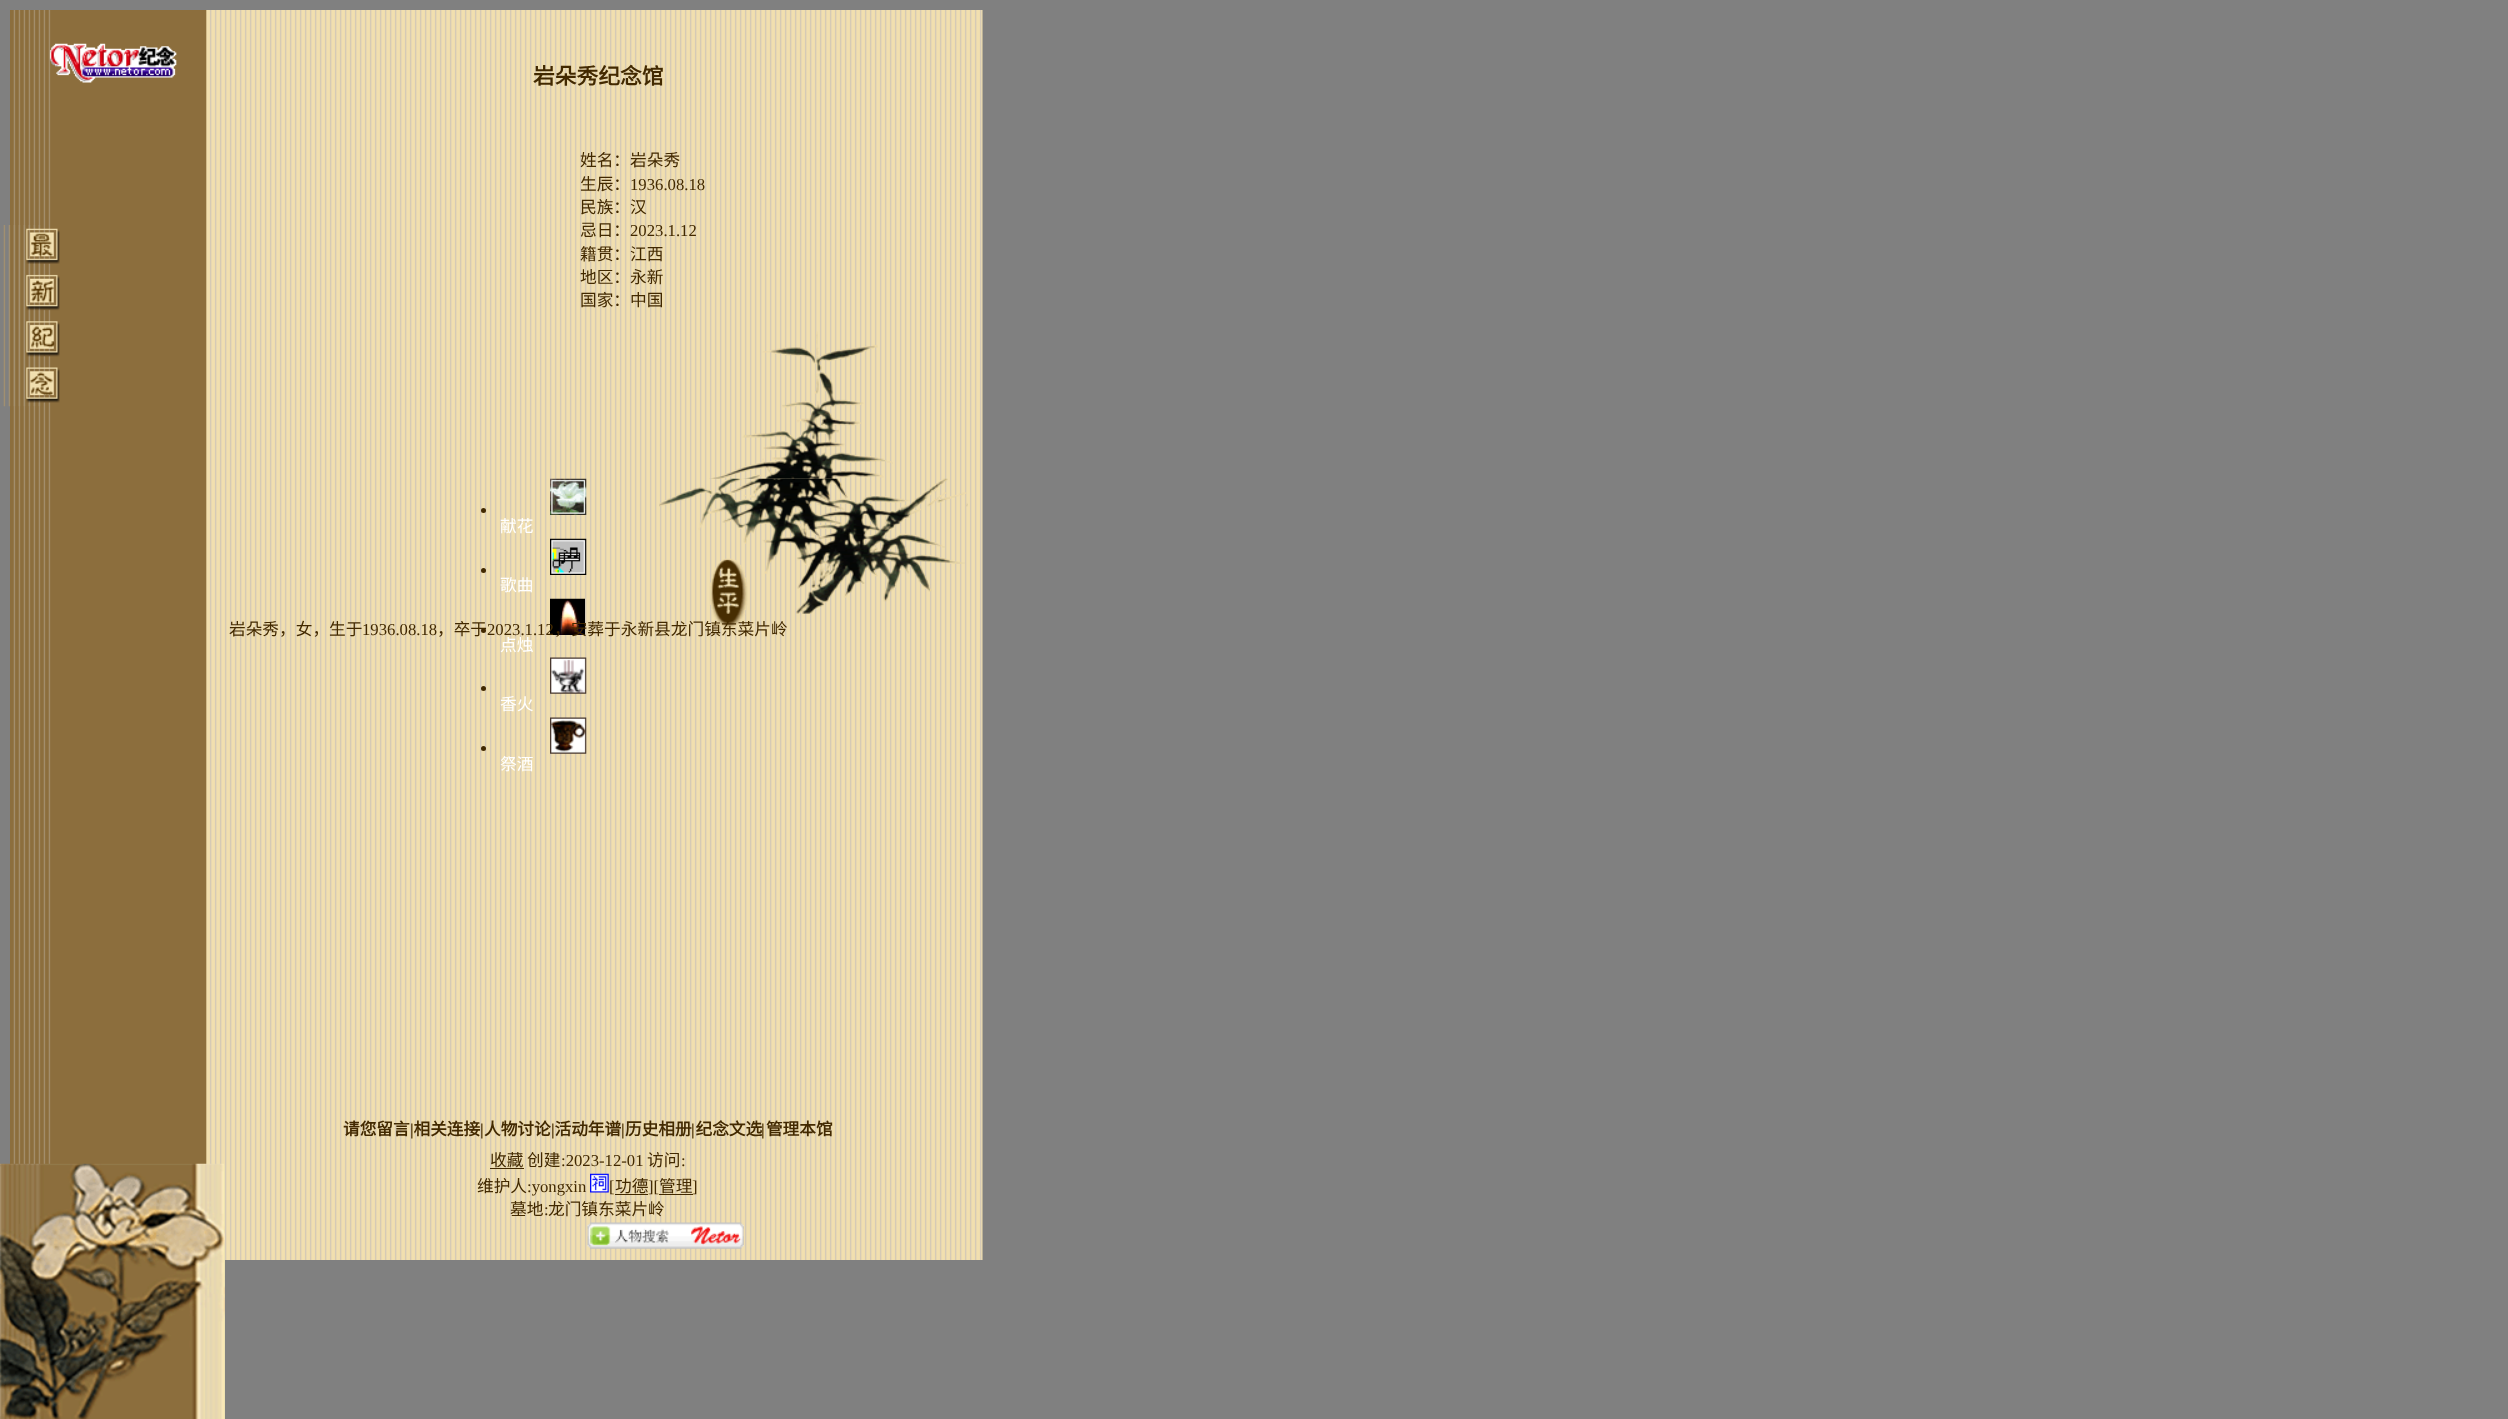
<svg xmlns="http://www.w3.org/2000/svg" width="2508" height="1419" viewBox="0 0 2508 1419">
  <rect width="100%" height="100%" fill="rgb(128,128,128)"/>
  <image x="10" y="10" width="973" height="1250" href="pic1.png"/>
  <image x="49" y="43" width="128" height="40" href="pic2.png"/>
  <text x="533" y="84" font-family="Noto Sans CJK SC" font-size="21.75" font-weight="bold" fill="rgb(66,41,0)">岩朵秀纪念馆</text>
  <image x="3" y="225" width="57" height="182" href="pic3.png"/>
  <g font-family="Noto Sans CJK SC" font-size="16.7" fill="rgb(66,41,0)">
    <text>
      <tspan x="580" y="166">姓名：岩朵秀</tspan>
      <tspan x="580" y="190">生辰：</tspan>
    </text>
  </g>
  <text x="630" y="190" font-family="Liberation Serif" font-size="16.7" fill="rgb(66,41,0)">1936.08.18</text>
  <g font-family="Noto Sans CJK SC" font-size="16.7" fill="rgb(66,41,0)">
    <text>
      <tspan x="580" y="213">民族：汉</tspan>
      <tspan x="580" y="236">忌日：</tspan>
    </text>
  </g>
  <text x="630" y="236" font-family="Liberation Serif" font-size="16.7" fill="rgb(66,41,0)">2023.1.12</text>
  <g font-family="Noto Sans CJK SC" font-size="16.7" fill="rgb(66,41,0)">
    <text>
      <tspan x="580" y="260">籍贯：江西</tspan>
      <tspan x="580" y="283">地区：永新</tspan>
      <tspan x="580" y="306">国家：中国</tspan>
    </text>
  </g>
  <image x="709" y="331" width="184" height="148" href="pic4.png"/>
  <circle cx="483.5" cy="510.5" r="2.5" fill="rgb(66,41,0)"/>
  <image x="550" y="478" width="37" height="37" href="pic5.png"/>
  <text x="500" y="532" font-family="Noto Sans CJK SC" font-size="16.7" fill="rgb(255,255,255)">献花</text>
  <circle cx="483.5" cy="570.5" r="2.5" fill="rgb(66,41,0)"/>
  <image x="550" y="538" width="37" height="37" href="pic6.png"/>
  <text x="500" y="591" font-family="Noto Sans CJK SC" font-size="16.7" fill="rgb(255,255,255)">歌曲</text>
  <circle cx="483.5" cy="630.5" r="2.5" fill="rgb(66,41,0)"/>
  <image x="550" y="598" width="35" height="37" href="pic7.png"/>
  <text x="500" y="651" font-family="Noto Sans CJK SC" font-size="16.7" fill="rgb(255,255,255)">点烛</text>
  <circle cx="483.5" cy="688.5" r="2.5" fill="rgb(66,41,0)"/>
  <image x="550" y="657" width="37" height="37" href="pic8.png"/>
  <text x="500" y="710" font-family="Noto Sans CJK SC" font-size="16.7" fill="rgb(255,255,255)">香火</text>
  <circle cx="483.5" cy="748.5" r="2.5" fill="rgb(66,41,0)"/>
  <image x="550" y="717" width="37" height="37" href="pic9.png"/>
  <text x="500" y="770" font-family="Noto Sans CJK SC" font-size="16.7" fill="rgb(255,255,255)">祭酒</text>
  <image x="659" y="478" width="309" height="151" href="pic10.png"/>
  <text x="229" y="635" font-family="Noto Sans CJK SC" font-size="16.7" fill="rgb(66,41,0)">岩朵秀，女，生于</text>
  <text x="362" y="635" font-family="Liberation Serif" font-size="16.7" fill="rgb(66,41,0)">1936.08.18</text>
  <text x="437" y="635" font-family="Noto Sans CJK SC" font-size="16.7" fill="rgb(66,41,0)">，卒于</text>
  <text x="487" y="635" font-family="Liberation Serif" font-size="16.7" fill="rgb(66,41,0)">2023.1.12</text>
  <text x="554" y="635" font-family="Noto Sans CJK SC" font-size="16.7" fill="rgb(66,41,0)">，安葬于永新县龙门镇东菜片岭</text>
  <text x="343" y="1135" font-family="Noto Sans CJK SC" font-size="16.7" font-weight="bold" fill="rgb(66,41,0)">请您留言 相关连接 人物讨论 活动年谱 历史相册 纪念文选 管理本馆</text>
  <g font-family="Liberation Serif" font-size="16.7" font-weight="bold" fill="rgb(66,41,0)">
    <text x="410" y="1135">|</text>
    <text x="480" y="1135">|</text>
    <text x="551" y="1135">|</text>
    <text x="621" y="1135">|</text>
    <text x="691" y="1135">|</text>
    <text x="761" y="1135">|</text>
  </g>
  <text x="490" y="1166" font-family="Noto Sans CJK SC" font-size="16.7" fill="rgb(66,41,0)">收藏</text>
  <rect x="490" y="1168" width="34" height="1" fill="rgb(66,41,0)"/>
  <text x="527" y="1166" font-family="Noto Sans CJK SC" font-size="16.7" fill="rgb(66,41,0)">创建</text>
  <text x="561" y="1166" font-family="Liberation Serif" font-size="16.7" fill="rgb(66,41,0)">:2023-12-01</text>
  <text x="647" y="1166" font-family="Noto Sans CJK SC" font-size="16.7" fill="rgb(66,41,0)">访问</text>
  <text x="681" y="1166" font-family="Liberation Serif" font-size="16.7" fill="rgb(66,41,0)">:</text>
  <text x="477" y="1192" font-family="Noto Sans CJK SC" font-size="16.7" fill="rgb(66,41,0)">维护人</text>
  <text x="527" y="1192" font-family="Liberation Serif" font-size="16.7" fill="rgb(66,41,0)">:yongxin</text>
  <image x="590" y="1173" width="19" height="20" href="pic11.png"/>
  <text x="609" y="1192" font-family="Liberation Serif" font-size="16.7" fill="rgb(66,41,0)">[</text>
  <text x="615" y="1192" font-family="Noto Sans CJK SC" font-size="16.7" fill="rgb(66,41,0)">功德</text>
  <rect x="615" y="1194" width="33" height="1" fill="rgb(66,41,0)"/>
  <text x="648" y="1192" font-family="Liberation Serif" font-size="16.7" fill="rgb(66,41,0)">][</text>
  <text x="659" y="1192" font-family="Noto Sans CJK SC" font-size="16.7" fill="rgb(66,41,0)">管理</text>
  <rect x="659" y="1194" width="34" height="1" fill="rgb(66,41,0)"/>
  <text x="692" y="1192" font-family="Liberation Serif" font-size="16.7" fill="rgb(66,41,0)">]</text>
  <text x="510" y="1215" font-family="Noto Sans CJK SC" font-size="16.7" fill="rgb(66,41,0)">墓地</text>
  <text x="544" y="1215" font-family="Liberation Serif" font-size="16.7" fill="rgb(66,41,0)">:</text>
  <text x="548" y="1215" font-family="Noto Sans CJK SC" font-size="16.7" fill="rgb(66,41,0)">龙门镇东菜片岭</text>
  <image x="587" y="1222" width="157" height="27" href="pic12.png"/>
  <image x="0" y="1163" width="225" height="256" href="pic13.png"/>
</svg>
